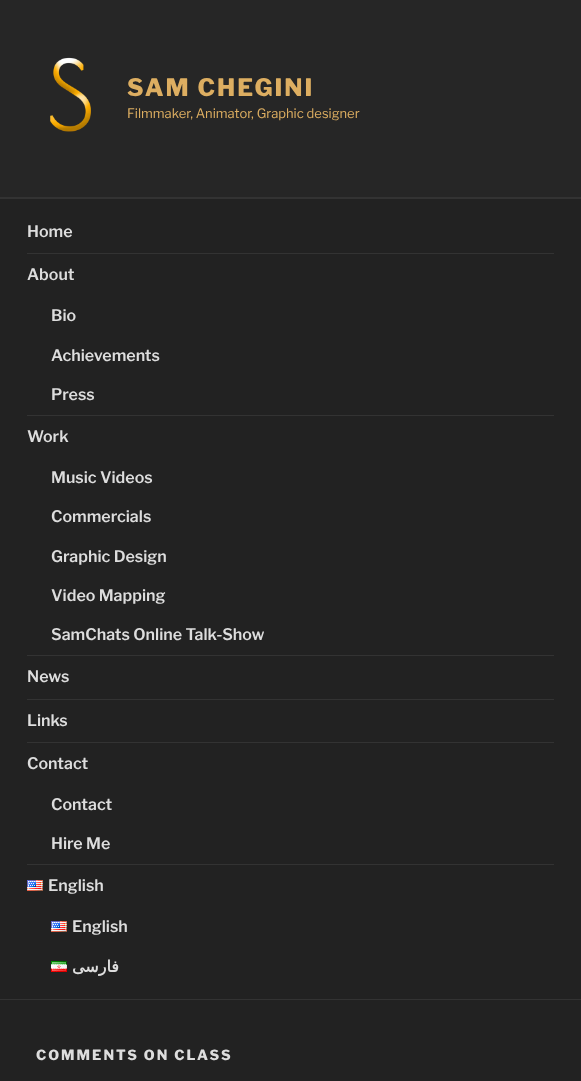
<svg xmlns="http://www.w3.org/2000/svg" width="581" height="1081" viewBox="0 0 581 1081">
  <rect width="100%" height="100%" fill="rgb(34,34,34)"/>
  <rect x="0" y="0" width="581" height="197" fill="rgb(38,38,38)"/>
  <image x="50" y="57" width="41" height="75" href="pic1.png"/>
  <text x="127" y="96" font-family="'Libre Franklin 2'" font-size="24" font-weight="100" letter-spacing="2" fill="rgb(221,174,97)">SAM CHEGINI</text>
  <text x="127" y="118" font-family="'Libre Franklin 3'" font-size="13" font-weight="100" fill="rgb(221,174,97)">Filmmaker, Animator, Graphic designer</text>
  <rect x="0" y="197" width="581" height="2" fill="rgb(51,51,51)"/>
  <rect x="0" y="999" width="581" height="1" fill="rgb(51,51,51)"/>
  <rect x="27" y="253" width="527" height="1" fill="rgb(51,51,51)"/>
  <text x="27" y="237" font-family="Libre Franklin" font-size="16" font-weight="100" fill="rgb(221,221,221)">Home</text>
  <rect x="27" y="415" width="527" height="1" fill="rgb(51,51,51)"/>
  <g font-family="Libre Franklin" font-size="16" font-weight="100" fill="rgb(221,221,221)">
    <text x="27" y="280">About</text>
    <text x="51" y="321">Bio</text>
    <text x="51" y="361">Achievements</text>
    <text x="51" y="400">Press</text>
  </g>
  <rect x="27" y="655" width="527" height="1" fill="rgb(51,51,51)"/>
  <g font-family="Libre Franklin" font-size="16" font-weight="100" fill="rgb(221,221,221)">
    <text x="27" y="442">Work</text>
    <text x="51" y="483">Music Videos</text>
    <text x="51" y="522">Commercials</text>
    <text x="51" y="562">Graphic Design</text>
    <text x="51" y="601">Video Mapping</text>
    <text x="51" y="640">SamChats Online Talk-Show</text>
  </g>
  <rect x="27" y="699" width="527" height="1" fill="rgb(51,51,51)"/>
  <text x="27" y="682" font-family="Libre Franklin" font-size="16" font-weight="100" fill="rgb(221,221,221)">News</text>
  <rect x="27" y="742" width="527" height="1" fill="rgb(51,51,51)"/>
  <text x="27" y="726" font-family="Libre Franklin" font-size="16" font-weight="100" fill="rgb(221,221,221)">Links</text>
  <rect x="27" y="864" width="527" height="1" fill="rgb(51,51,51)"/>
  <g font-family="Libre Franklin" font-size="16" font-weight="100" fill="rgb(221,221,221)">
    <text x="27" y="769">Contact</text>
    <text x="51" y="810">Contact</text>
    <text x="51" y="849">Hire Me</text>
  </g>
  <image x="27" y="880" width="16" height="11" href="pic2.png"/>
  <text x="48" y="891" font-family="Libre Franklin" font-size="16" font-weight="100" fill="rgb(221,221,221)">English</text>
  <image x="51" y="921" width="16" height="11" href="pic2.png"/>
  <text x="72" y="932" font-family="Libre Franklin" font-size="16" font-weight="100" fill="rgb(221,221,221)">English</text>
  <image x="51" y="961" width="16" height="11" href="pic3.png"/>
  <text x="119" y="972" font-family="DejaVu Sans" font-size="16" font-weight="bold" direction="rtl" fill="rgb(221,221,221)">فارسی</text>
  <text x="36" y="1060" font-family="'Libre Franklin 2'" font-size="14" font-weight="100" letter-spacing="2" fill="rgb(221,221,221)">COMMENTS ON CLASS</text>
</svg>
